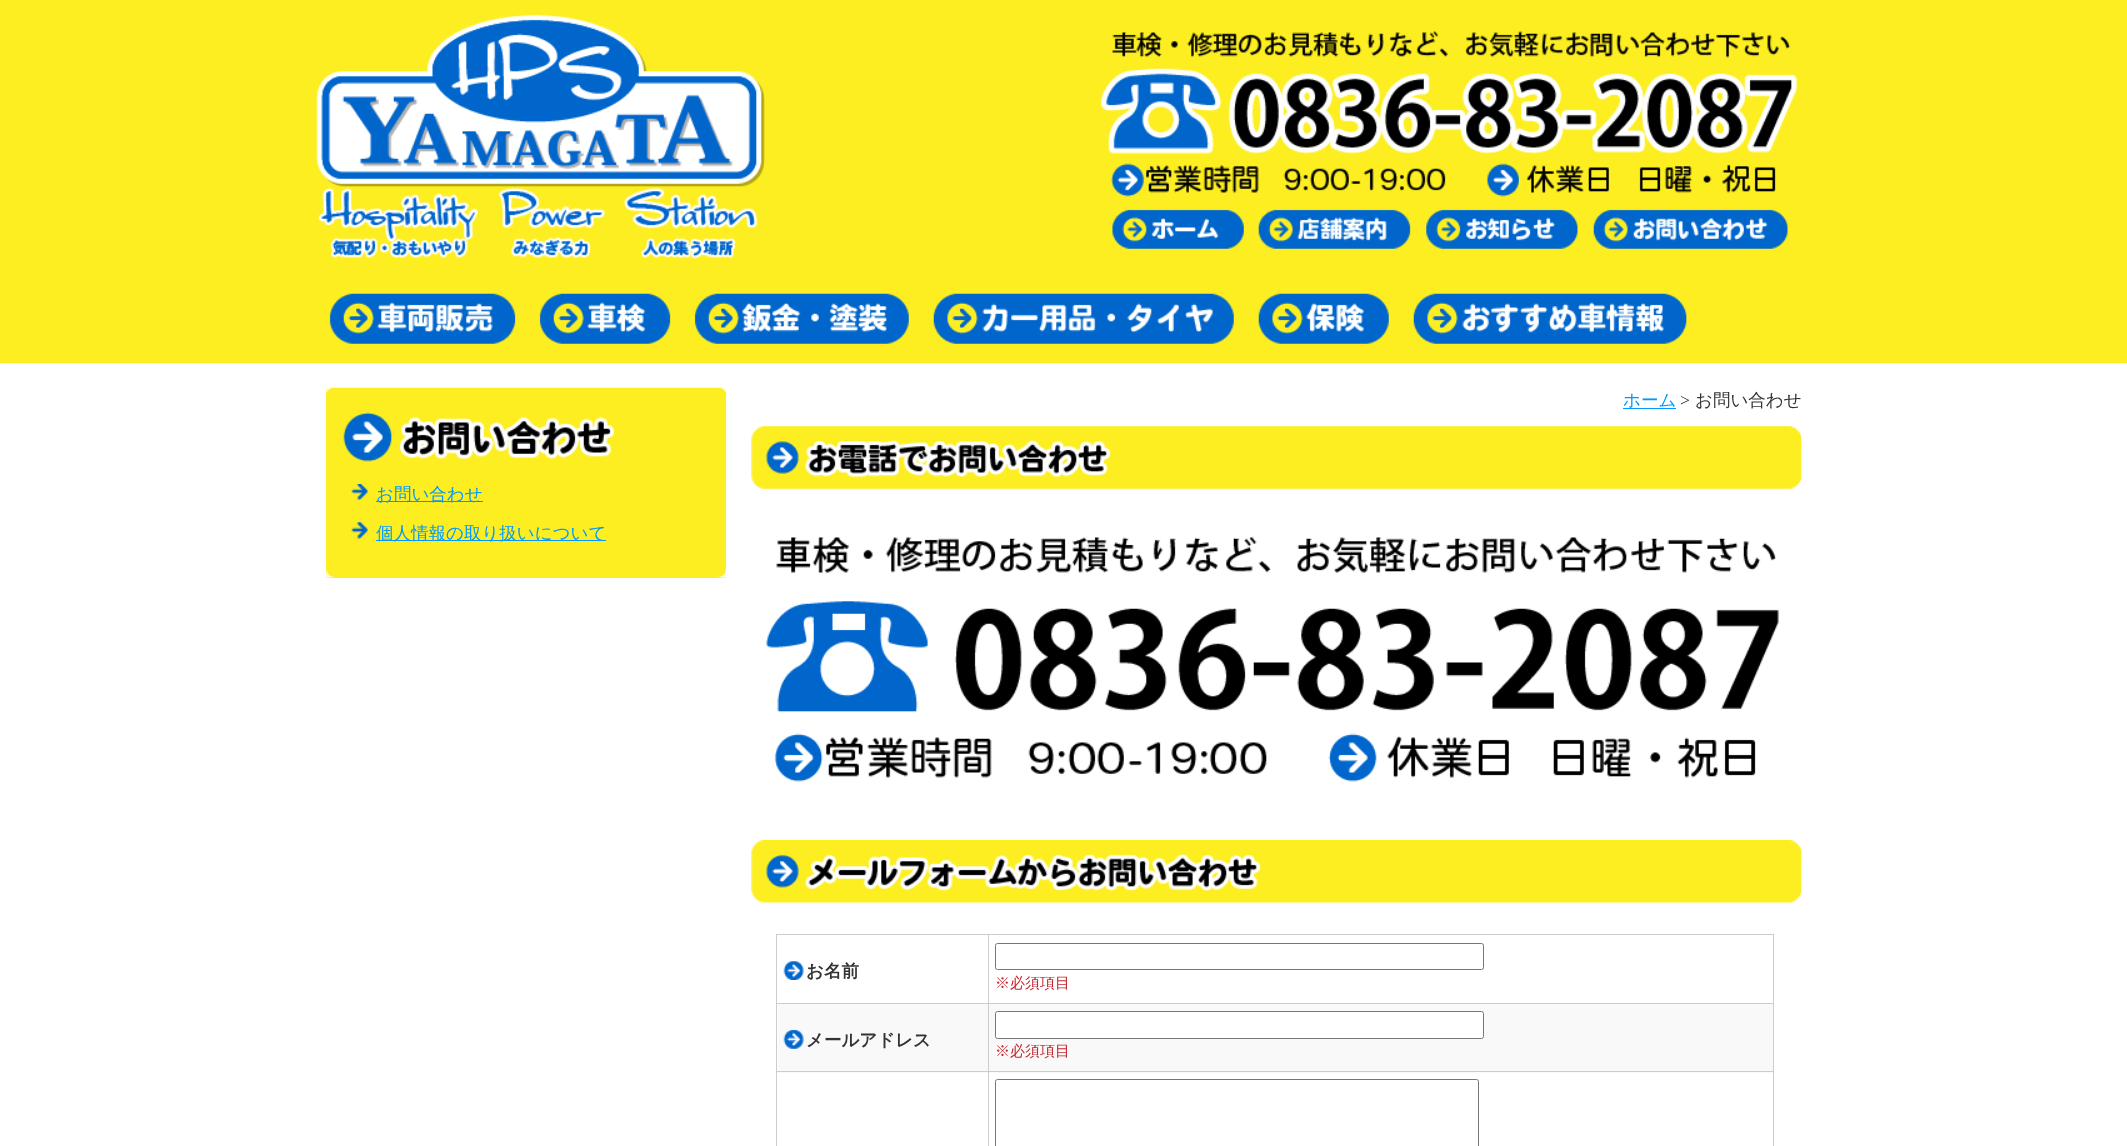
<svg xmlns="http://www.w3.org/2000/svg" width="2127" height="1146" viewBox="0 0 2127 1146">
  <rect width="100%" height="100%" fill="rgb(255,255,255)"/>
  <rect x="0" y="0" width="2127" height="363" fill="rgb(252,238,33)"/>
  <image x="316" y="14" width="449" height="245" href="pic1.png"/>
  <image x="1101" y="31" width="697" height="166" href="pic2.png"/>
  <image x="1112" y="209" width="132" height="40" href="pic3.png"/>
  <image x="1258" y="209" width="153" height="40" href="pic4.png"/>
  <image x="1426" y="209" width="152" height="40" href="pic5.png"/>
  <image x="1593" y="209" width="195" height="40" href="pic6.png"/>
  <image x="329" y="293" width="187" height="51" href="pic7.png"/>
  <image x="539" y="293" width="132" height="51" href="pic8.png"/>
  <image x="694" y="293" width="215" height="51" href="pic9.png"/>
  <image x="933" y="293" width="301" height="51" href="pic10.png"/>
  <image x="1258" y="293" width="131" height="51" href="pic11.png"/>
  <image x="1413" y="293" width="274" height="51" href="pic12.png"/>
  <rect x="326" y="388" width="400" height="190" fill="rgb(252,238,33)"/>
  <image x="326" y="568" width="400" height="10" href="pic13.png"/>
  <image x="326" y="387" width="401" height="88" href="pic14.png"/>
  <image x="351" y="484" width="17" height="16" href="pic15.png"/>
  <rect x="376" y="501" width="107" height="1" fill="rgb(0,153,255)"/>
  <text x="376" y="500" font-family="WenQuanYi Zen Hei" font-size="17.5" font-weight="500" fill="rgb(0,153,255)">お問い合わせ</text>
  <image x="351" y="522" width="17" height="17" href="pic16.png"/>
  <rect x="376" y="540" width="230" height="1" fill="rgb(0,153,255)"/>
  <g font-family="WenQuanYi Zen Hei" font-size="17.5" font-weight="500" fill="rgb(0,153,255)">
    <text x="376" y="539">個人情報の取り扱いについて</text>
    <text x="1623" y="406">ホーム</text>
  </g>
  <rect x="1623" y="408" width="53" height="1" fill="rgb(0,153,255)"/>
  <text x="1680" y="406" font-family="Liberation Serif" font-size="17.5" fill="rgb(51,51,51)">&gt;</text>
  <text x="1695" y="406" font-family="WenQuanYi Zen Hei" font-size="17.5" font-weight="500" fill="rgb(51,51,51)">お問い合わせ</text>
  <image x="751" y="426" width="1051" height="63" href="pic17.png"/>
  <image x="766" y="536" width="1013" height="246" href="pic18.png"/>
  <image x="751" y="840" width="1051" height="63" href="pic19.png"/>
  <rect x="776" y="934" width="998" height="1" fill="rgb(204,204,204)"/>
  <rect x="1773" y="934" width="1" height="212" fill="rgb(204,204,204)"/>
  <rect x="776" y="934" width="1" height="212" fill="rgb(204,204,204)"/>
  <image x="783" y="961" width="21" height="19" href="pic20.png"/>
  <text x="806" y="977" font-family="WenQuanYi Zen Hei" font-size="17.5" font-weight="bold" fill="rgb(51,51,51)">お名前</text>
  <rect x="988" y="1003" width="786" height="1" fill="rgb(204,204,204)"/>
  <rect x="778" y="1004" width="210" height="69" fill="rgb(249,249,249)"/>
  <rect x="989" y="1004" width="784" height="69" fill="rgb(249,249,249)"/>
  <rect x="988" y="1071" width="786" height="1" fill="rgb(204,204,204)"/>
  <rect x="988" y="1071" width="1" height="75" fill="rgb(204,204,204)"/>
  <rect x="776" y="1071" width="213" height="1" fill="rgb(204,204,204)"/>
  <rect x="988" y="1003" width="1" height="70" fill="rgb(204,204,204)"/>
  <rect x="776" y="1003" width="213" height="1" fill="rgb(204,204,204)"/>
  <rect x="988" y="934" width="1" height="70" fill="rgb(204,204,204)"/>
  <rect x="995.5" y="943.5" width="488" height="26" rx="2" fill="none" stroke="rgb(118,118,118)"/>
  <text x="995" y="988" font-family="WenQuanYi Zen Hei" font-size="15" font-weight="500" fill="rgb(193,39,45)">※必須項目</text>
  <image x="783" y="1029" width="21" height="20" href="pic21.png"/>
  <text x="806" y="1046" font-family="WenQuanYi Zen Hei" font-size="17.5" font-weight="bold" fill="rgb(51,51,51)">メールアドレス</text>
  <rect x="995.5" y="1011.5" width="488" height="27" rx="2" fill="rgb(255,255,255)" stroke="rgb(118,118,118)"/>
  <text x="995" y="1056" font-family="WenQuanYi Zen Hei" font-size="15" font-weight="500" fill="rgb(193,39,45)">※必須項目</text>
  <rect x="995.5" y="1079.5" width="483" height="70" rx="2" fill="none" stroke="rgb(118,118,118)"/>
</svg>
